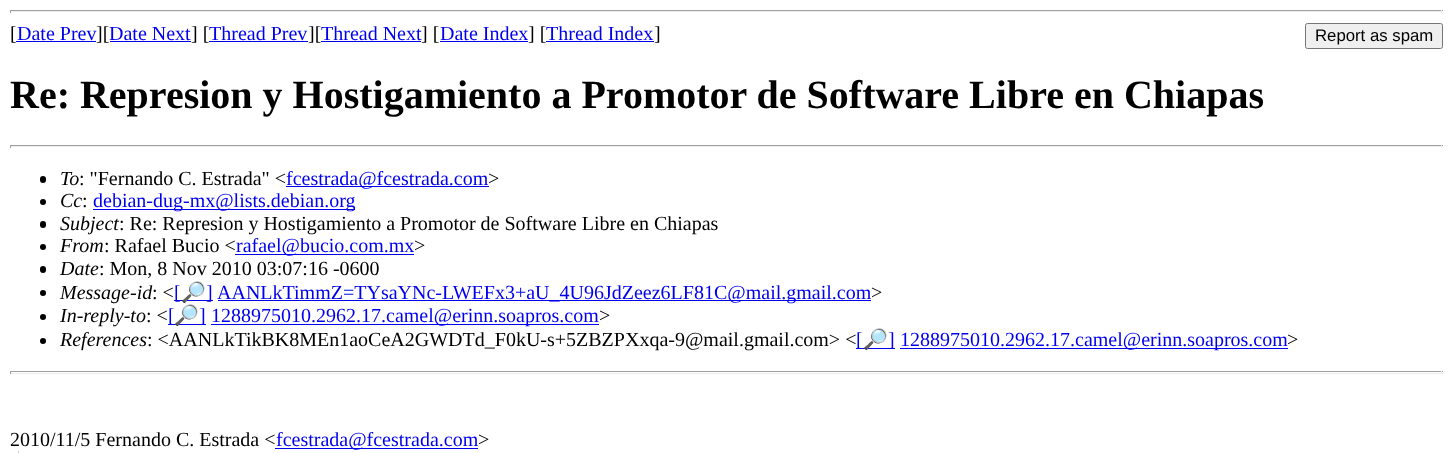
<svg xmlns="http://www.w3.org/2000/svg" width="1452" height="453" viewBox="0 0 1452 453">
  <rect width="100%" height="100%" fill="rgb(255,255,255)"/>
  <rect x="10" y="10" width="1433" height="1" fill="rgb(159,159,159)"/>
  <rect x="1441" y="10" width="1" height="3" fill="rgb(238,238,238)"/>
  <rect x="10" y="11" width="1433" height="1" fill="rgb(238,238,238)"/>
  <rect x="10" y="10" width="1" height="3" fill="rgb(159,159,159)"/>
  <text x="10" y="40" font-family="Liberation Serif" font-size="20" fill="rgb(0,0,0)">[</text>
  <text x="17" y="40" font-family="Liberation Serif" font-size="20" fill="rgb(0,0,238)">Date Prev</text>
  <rect x="16" y="41" width="80" height="1" fill="rgb(0,0,238)"/>
  <text x="96" y="40" font-family="Liberation Serif" font-size="20" fill="rgb(0,0,0)">][</text>
  <text x="109" y="40" font-family="Liberation Serif" font-size="20" fill="rgb(0,0,238)">Date Next</text>
  <rect x="110" y="41" width="81" height="1" fill="rgb(0,0,238)"/>
  <text x="191" y="40" font-family="Liberation Serif" font-size="20" fill="rgb(0,0,0)">] [</text>
  <text x="209" y="40" font-family="Liberation Serif" font-size="20" fill="rgb(0,0,238)">Thread Prev</text>
  <rect x="209" y="41" width="99" height="1" fill="rgb(0,0,238)"/>
  <text x="308" y="40" font-family="Liberation Serif" font-size="20" fill="rgb(0,0,0)">][</text>
  <text x="321" y="40" font-family="Liberation Serif" font-size="20" fill="rgb(0,0,238)">Thread Next</text>
  <rect x="321" y="41" width="100" height="1" fill="rgb(0,0,238)"/>
  <text x="421" y="40" font-family="Liberation Serif" font-size="20" fill="rgb(0,0,0)">] [</text>
  <text x="440" y="40" font-family="Liberation Serif" font-size="20" fill="rgb(0,0,238)">Date Index</text>
  <rect x="440" y="41" width="88" height="1" fill="rgb(0,0,238)"/>
  <text x="528" y="40" font-family="Liberation Serif" font-size="20" fill="rgb(0,0,0)">] [</text>
  <text x="546" y="40" font-family="Liberation Serif" font-size="20" fill="rgb(0,0,238)">Thread Index</text>
  <rect x="546" y="41" width="108" height="1" fill="rgb(0,0,238)"/>
  <text x="654" y="40" font-family="Liberation Serif" font-size="20" fill="rgb(0,0,0)">]</text>
  <rect x="1305.5" y="23.5" width="137" height="25" rx="2" fill="rgb(239,239,239)" stroke="rgb(118,118,118)"/>
  <text x="1315" y="41" font-family="Liberation Sans" font-size="16.75" fill="rgb(0,0,0)">Report as spam</text>
  <text x="10" y="108" font-family="Liberation Serif" font-size="40" font-weight="bold" fill="rgb(0,0,0)">Re: Represion y Hostigamiento a Promotor de Software Libre en Chiapas</text>
  <rect x="10" y="145" width="1433" height="1" fill="rgb(159,159,159)"/>
  <rect x="1441" y="145" width="1" height="3" fill="rgb(238,238,238)"/>
  <rect x="10" y="146" width="1433" height="1" fill="rgb(238,238,238)"/>
  <rect x="10" y="145" width="1" height="3" fill="rgb(159,159,159)"/>
  <rect x="40" y="176" width="6" height="7" rx="3" fill="rgb(0,0,0)"/>
  <text x="60" y="185" font-family="Liberation Serif" font-size="20" font-style="italic" fill="rgb(0,0,0)">To</text>
  <text x="79" y="185" font-family="Liberation Serif" font-size="20" fill="rgb(0,0,0)">: "Fernando C. Estrada" &lt;</text>
  <rect x="286" y="186" width="203" height="1" fill="rgb(0,0,238)"/>
  <text x="286" y="185" font-family="Liberation Serif" font-size="20" fill="rgb(0,0,238)">fcestrada@fcestrada.com</text>
  <text x="488" y="185" font-family="Liberation Serif" font-size="20" fill="rgb(0,0,0)">&gt;</text>
  <circle cx="43" cy="202" r="3" fill="rgb(0,0,0)"/>
  <text x="60" y="207" font-family="Liberation Serif" font-size="20" font-style="italic" fill="rgb(0,0,0)">Cc</text>
  <text x="82" y="207" font-family="Liberation Serif" font-size="20" fill="rgb(0,0,0)">:</text>
  <rect x="93" y="209" width="262" height="1" fill="rgb(0,0,238)"/>
  <text x="93" y="207" font-family="Liberation Serif" font-size="20" fill="rgb(0,0,238)">debian-dug-mx@lists.debian.org</text>
  <rect x="40" y="221" width="6" height="7" rx="3" fill="rgb(0,0,0)"/>
  <text x="60" y="230" font-family="Liberation Serif" font-size="20" font-style="italic" fill="rgb(0,0,0)">Subject</text>
  <text x="119" y="230" font-family="Liberation Serif" font-size="20" fill="rgb(0,0,0)">: Re: Represion y Hostigamiento a Promotor de Software Libre en Chiapas</text>
  <circle cx="43" cy="247" r="3" fill="rgb(0,0,0)"/>
  <text x="60" y="252" font-family="Liberation Serif" font-size="20" font-style="italic" fill="rgb(0,0,0)">From</text>
  <text x="104" y="252" font-family="Liberation Serif" font-size="20" fill="rgb(0,0,0)">: Rafael Bucio &lt;</text>
  <rect x="235" y="254" width="179" height="1" fill="rgb(0,0,238)"/>
  <text x="236" y="252" font-family="Liberation Serif" font-size="20" fill="rgb(0,0,238)">rafael@bucio.com.mx</text>
  <text x="414" y="252" font-family="Liberation Serif" font-size="20" fill="rgb(0,0,0)">&gt;</text>
  <rect x="40" y="266" width="6" height="7" rx="3" fill="rgb(0,0,0)"/>
  <text x="60" y="275" font-family="Liberation Serif" font-size="20" font-style="italic" fill="rgb(0,0,0)">Date</text>
  <text x="99" y="275" font-family="Liberation Serif" font-size="20" fill="rgb(0,0,0)">: Mon, 8 Nov 2010 03:07:16 -0600</text>
  <circle cx="43" cy="293" r="3" fill="rgb(0,0,0)"/>
  <text x="60" y="299" font-family="Liberation Serif" font-size="20" font-style="italic" fill="rgb(0,0,0)">Message-id</text>
  <text x="152" y="299" font-family="Liberation Serif" font-size="20" fill="rgb(0,0,0)">: &lt;</text>
  <rect x="174" y="300" width="39" height="1" fill="rgb(0,0,238)"/>
  <text x="174" y="299" font-family="Liberation Serif" font-size="20" fill="rgb(0,0,238)">[</text>
  <text x="181" y="299" font-family="Noto Color Emoji" font-size="20" fill="rgb(0,0,238)">🔎</text>
  <text x="206" y="299" font-family="Liberation Serif" font-size="20" fill="rgb(0,0,238)">]</text>
  <rect x="218" y="300" width="653" height="1" fill="rgb(0,0,238)"/>
  <text x="217" y="299" font-family="Liberation Serif" font-size="20" fill="rgb(0,0,238)">AANLkTimmZ=TYsaYNc-LWEFx3+aU_4U96JdZeez6LF81C@mail.gmail.com</text>
  <text x="871" y="299" font-family="Liberation Serif" font-size="20" fill="rgb(0,0,0)">&gt;</text>
  <circle cx="43" cy="317" r="3" fill="rgb(0,0,0)"/>
  <text x="60" y="322" font-family="Liberation Serif" font-size="20" font-style="italic" fill="rgb(0,0,0)">In-reply-to</text>
  <text x="146" y="322" font-family="Liberation Serif" font-size="20" fill="rgb(0,0,0)">: &lt;</text>
  <rect x="168" y="324" width="38" height="1" fill="rgb(0,0,238)"/>
  <text x="168" y="322" font-family="Liberation Serif" font-size="20" fill="rgb(0,0,238)">[</text>
  <text x="174" y="322" font-family="Noto Color Emoji" font-size="20" fill="rgb(0,0,238)">🔎</text>
  <text x="199" y="322" font-family="Liberation Serif" font-size="20" fill="rgb(0,0,238)">]</text>
  <rect x="211" y="324" width="388" height="1" fill="rgb(0,0,238)"/>
  <text x="211" y="322" font-family="Liberation Serif" font-size="20" fill="rgb(0,0,238)">1288975010.2962.17.camel@erinn.soapros.com</text>
  <text x="599" y="322" font-family="Liberation Serif" font-size="20" fill="rgb(0,0,0)">&gt;</text>
  <circle cx="43" cy="341" r="3" fill="rgb(0,0,0)"/>
  <text x="60" y="346" font-family="Liberation Serif" font-size="20" font-style="italic" fill="rgb(0,0,0)">References</text>
  <text x="147" y="346" font-family="Liberation Serif" font-size="20" fill="rgb(0,0,0)">: &lt;AANLkTikBK8MEn1aoCeA2GWDTd_F0kU-s+5ZBZPXxqa-9@mail.gmail.com&gt; &lt;</text>
  <rect x="856" y="348" width="39" height="1" fill="rgb(0,0,238)"/>
  <text x="856" y="346" font-family="Liberation Serif" font-size="20" fill="rgb(0,0,238)">[</text>
  <text x="863" y="346" font-family="Noto Color Emoji" font-size="20" fill="rgb(0,0,238)">🔎</text>
  <text x="888" y="346" font-family="Liberation Serif" font-size="20" fill="rgb(0,0,238)">]</text>
  <rect x="900" y="348" width="388" height="1" fill="rgb(0,0,238)"/>
  <text x="900" y="346" font-family="Liberation Serif" font-size="20" fill="rgb(0,0,238)">1288975010.2962.17.camel@erinn.soapros.com</text>
  <text x="1287" y="346" font-family="Liberation Serif" font-size="20" fill="rgb(0,0,0)">&gt;</text>
  <rect x="10" y="371" width="1433" height="1" fill="rgb(159,159,159)"/>
  <rect x="1441" y="371" width="1" height="3" fill="rgb(238,238,238)"/>
  <rect x="10" y="373" width="1433" height="1" fill="rgb(238,238,238)"/>
  <rect x="10" y="371" width="1" height="3" fill="rgb(159,159,159)"/>
  <text x="10" y="446" font-family="Liberation Serif" font-size="20" fill="rgb(0,0,0)">2010/11/5 Fernando C. Estrada &lt;</text>
  <rect x="275" y="448" width="203" height="1" fill="rgb(0,0,238)"/>
  <text x="276" y="446" font-family="Liberation Serif" font-size="20" fill="rgb(0,0,238)">fcestrada@fcestrada.com</text>
  <text x="478" y="446" font-family="Liberation Serif" font-size="20" fill="rgb(0,0,0)">&gt;</text>
  <rect x="18" y="451" width="1" height="2" fill="rgb(204,204,204)"/>
</svg>
